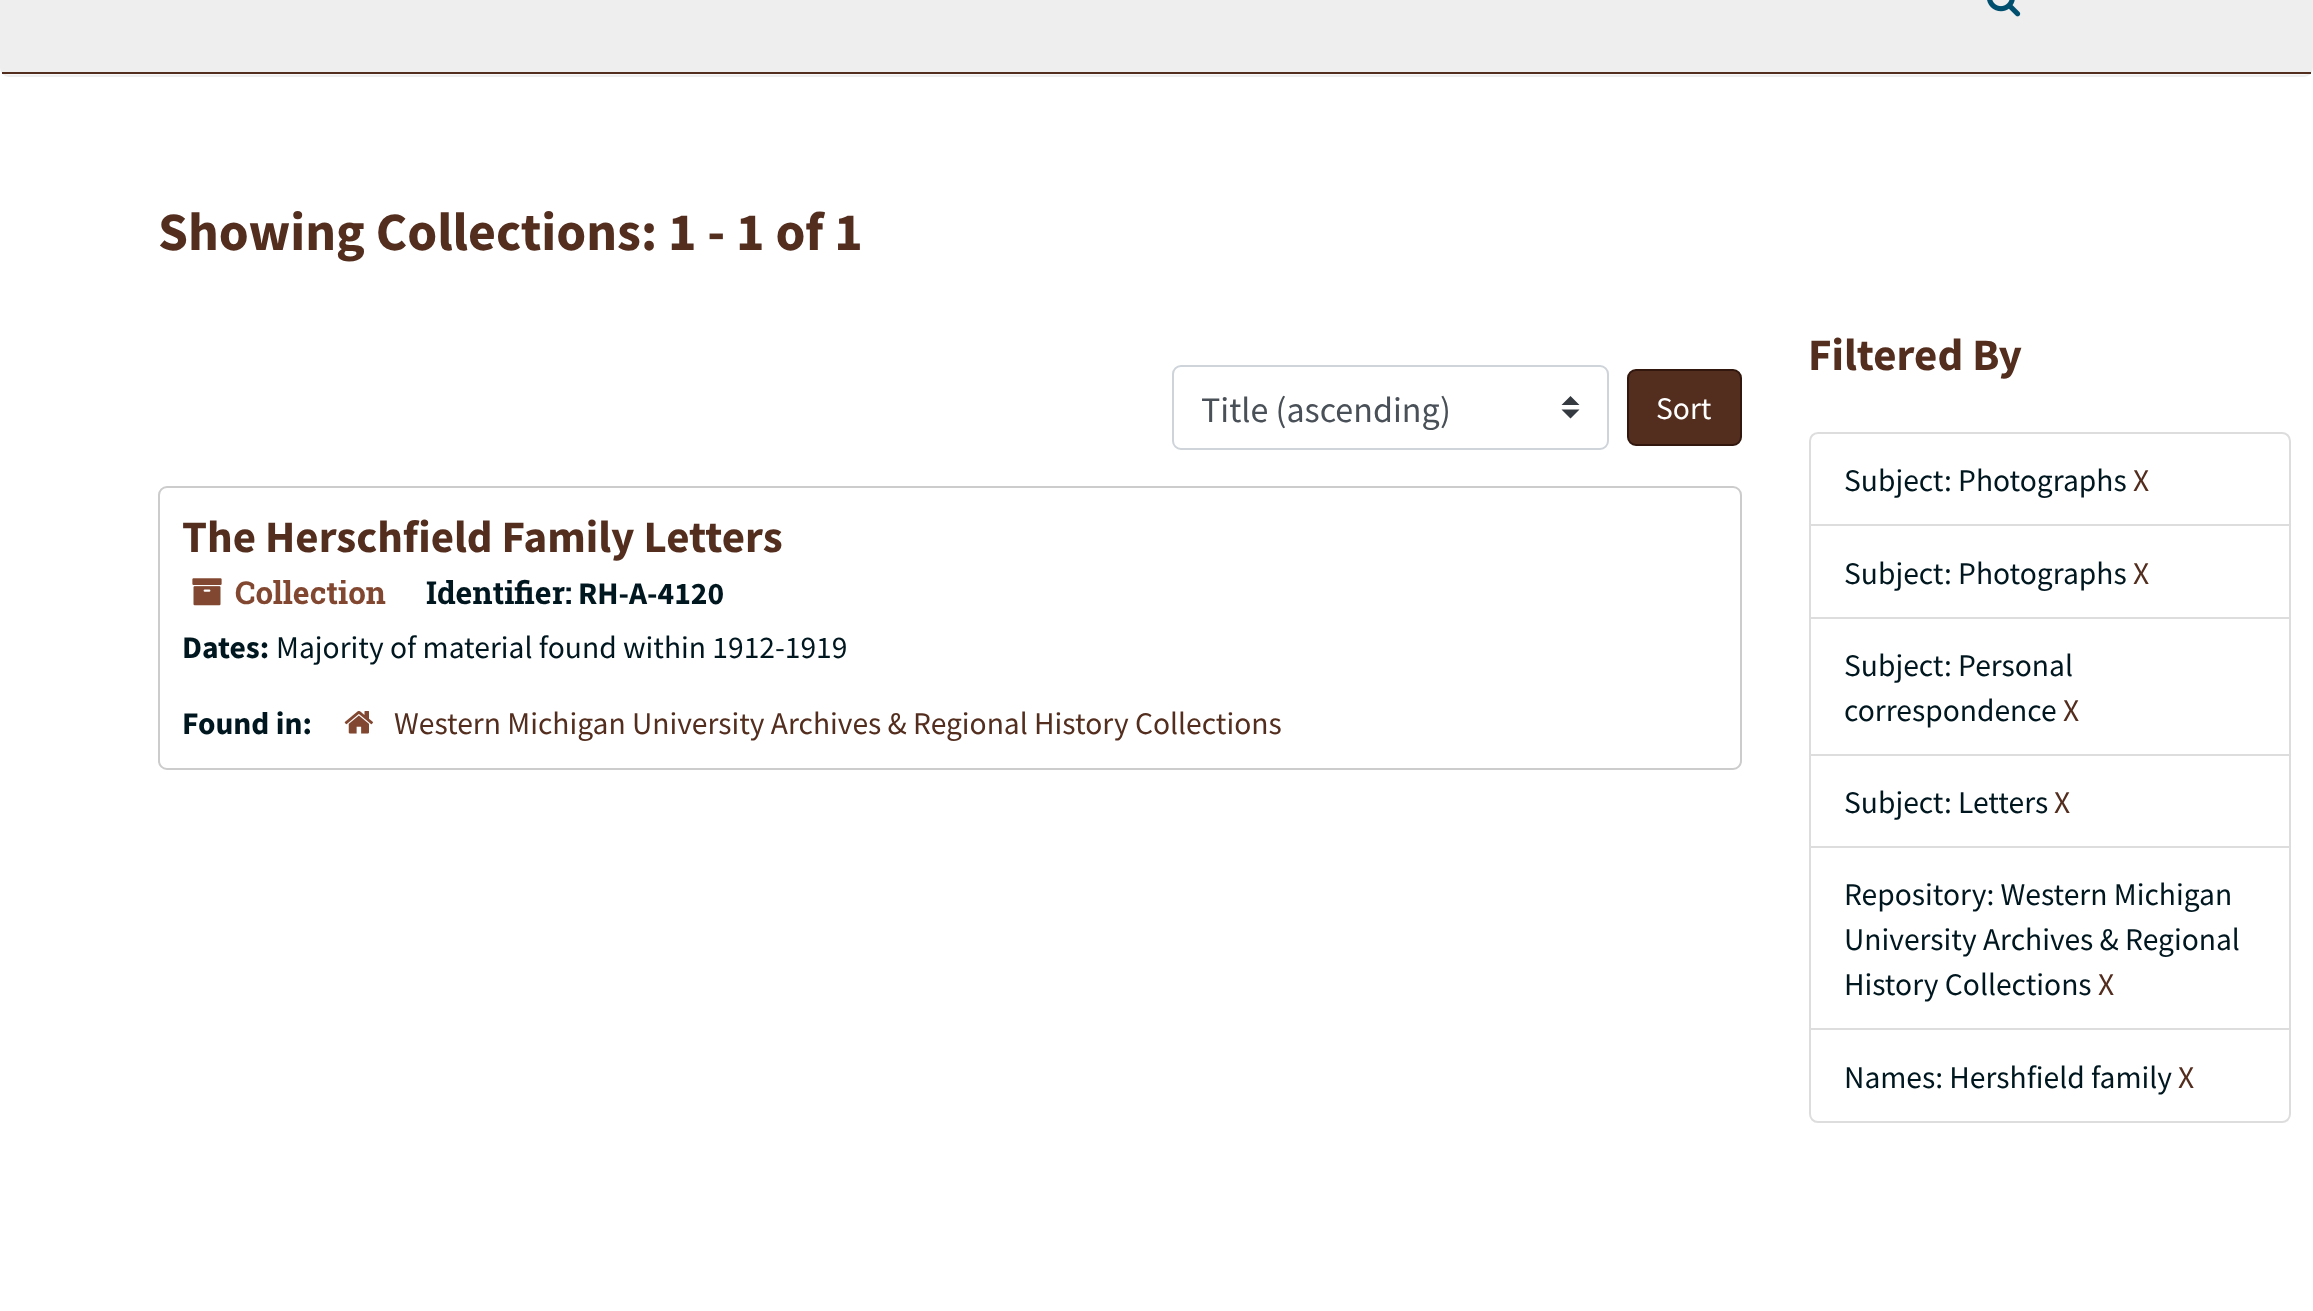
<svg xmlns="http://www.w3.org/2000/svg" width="2313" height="1311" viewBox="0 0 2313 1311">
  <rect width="100%" height="100%" fill="rgb(255,255,255)"/>
  <rect x="1" y="-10" width="2311" height="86" rx="8" fill="rgb(248,249,250)" stroke="rgb(238,238,238)" stroke-width="2"/>
  <rect x="2" y="0" width="2309" height="72" fill="rgb(238,238,238)"/>
  <rect x="2" y="72" width="2309" height="2" fill="rgb(83,46,31)"/>
  <image x="1987" y="0" width="34" height="17" href="pic1.png"/>
  <text x="158" y="250" font-family="Source Sans Pro" font-size="54" font-weight="bold" fill="rgb(83,46,31)">Showing Collections: 1 - 1 of 1</text>
  <path d="M1570.5 396L1561.5 405H1579.5ZM1570.5 418.5L1561.5 409.5H1579.5Z" fill="rgb(52,58,64)"/>
  <rect x="1173" y="366" width="435" height="83" rx="8" fill="none" stroke="rgb(206,212,218)" stroke-width="2"/>
  <text x="1201" y="422" font-family="Source Sans Pro" font-size="36" fill="rgb(73,80,87)">Title (ascending)</text>
  <rect x="1628" y="370" width="113" height="75" rx="8" fill="rgb(83,46,31)" stroke="rgb(49,23,13)" stroke-width="2"/>
  <text x="1656" y="419" font-family="Source Sans Pro" font-size="31.5" fill="rgb(255,255,255)">Sort</text>
  <rect x="159" y="487" width="1582" height="282" rx="8" fill="none" stroke="rgb(204,204,204)" stroke-width="2"/>
  <text x="182" y="552" font-family="Source Sans Pro" font-size="45" font-weight="bold" fill="rgb(83,46,31)">The Herschfield Family Letters</text>
  <image x="192" y="578" width="30" height="28" href="pic2.png"/>
  <text x="235" y="604" font-family="Roboto Slab" font-size="31.5" font-weight="bold" fill="rgb(130,71,48)">Collection</text>
  <text x="426" y="604" font-family="Roboto Slab" font-size="31.5" font-weight="bold" fill="rgb(0,23,31)">Identifier:</text>
  <g font-family="Source Sans Pro" font-size="31.5" font-weight="bold" fill="rgb(0,23,31)">
    <text x="578" y="604">RH-A-4120</text>
    <text x="182" y="658">Dates:</text>
  </g>
  <text x="276" y="658" font-family="Source Sans Pro" font-size="31.5" fill="rgb(0,23,31)">Majority of material found within 1912-1919</text>
  <text x="182" y="734" font-family="Source Sans Pro" font-size="31.5" font-weight="bold" fill="rgb(0,23,31)">Found in:</text>
  <image x="344" y="711" width="29" height="23" href="pic3.png"/>
  <text x="394" y="734" font-family="Source Sans Pro" font-size="31.5" fill="rgb(83,46,31)">Western Michigan University Archives &amp; Regional History Collections</text>
  <text x="1808" y="370" font-family="Source Sans Pro" font-size="45" font-weight="bold" fill="rgb(83,46,31)">Filtered By</text>
  <path d="M1818 433H2282C2286.5 433 2290 436.5 2290 441V526H1810V441C1810 436.5 1813.5 433 1818 433Z" fill="none" stroke="rgb(221,221,221)" stroke-width="2"/>
  <text x="1844" y="491" font-family="Source Sans Pro" font-size="31.5" fill="rgb(0,23,31)">Subject: Photographs</text>
  <text x="2133" y="491" font-family="Source Sans Pro" font-size="31.5" fill="rgb(83,46,31)">X</text>
  <rect x="1811" y="526" width="478" height="1" fill="rgb(255,255,255)"/>
  <rect x="1810" y="525" width="480" height="93" fill="none" stroke="rgb(221,221,221)" stroke-width="2"/>
  <text x="1844" y="584" font-family="Source Sans Pro" font-size="31.5" fill="rgb(0,23,31)">Subject: Photographs</text>
  <text x="2133" y="584" font-family="Source Sans Pro" font-size="31.5" fill="rgb(83,46,31)">X</text>
  <rect x="1810" y="618" width="480" height="137" fill="none" stroke="rgb(221,221,221)" stroke-width="2"/>
  <g font-family="Source Sans Pro" font-size="31.5" fill="rgb(0,23,31)">
    <text>
      <tspan x="1844" y="676">Subject: Personal</tspan>
      <tspan x="1844" y="721">correspondence</tspan>
    </text>
  </g>
  <text x="2063" y="721" font-family="Source Sans Pro" font-size="31.5" fill="rgb(83,46,31)">X</text>
  <rect x="1810" y="755" width="480" height="92" fill="none" stroke="rgb(221,221,221)" stroke-width="2"/>
  <text x="1844" y="813" font-family="Source Sans Pro" font-size="31.5" fill="rgb(0,23,31)">Subject: Letters</text>
  <text x="2054" y="813" font-family="Source Sans Pro" font-size="31.5" fill="rgb(83,46,31)">X</text>
  <rect x="1810" y="847" width="480" height="183" fill="none" stroke="rgb(221,221,221)" stroke-width="2"/>
  <g font-family="Source Sans Pro" font-size="31.5" fill="rgb(0,23,31)">
    <text>
      <tspan x="1844" y="905">Repository: Western Michigan</tspan>
      <tspan x="1844" y="950">University Archives &amp; Regional</tspan>
      <tspan x="1844" y="995">History Collections</tspan>
    </text>
  </g>
  <text x="2098" y="995" font-family="Source Sans Pro" font-size="31.5" fill="rgb(83,46,31)">X</text>
  <path d="M1810 1029H2290V1114C2290 1118.5 2286.5 1122 2282 1122H1818C1813.5 1122 1810 1118.5 1810 1114Z" fill="rgb(255,255,255)" stroke="rgb(221,221,221)" stroke-width="2"/>
  <text x="1844" y="1088" font-family="Source Sans Pro" font-size="31.5" fill="rgb(0,23,31)">Names: Hershfield family</text>
  <text x="2178" y="1088" font-family="Source Sans Pro" font-size="31.5" fill="rgb(83,46,31)">X</text>
</svg>
